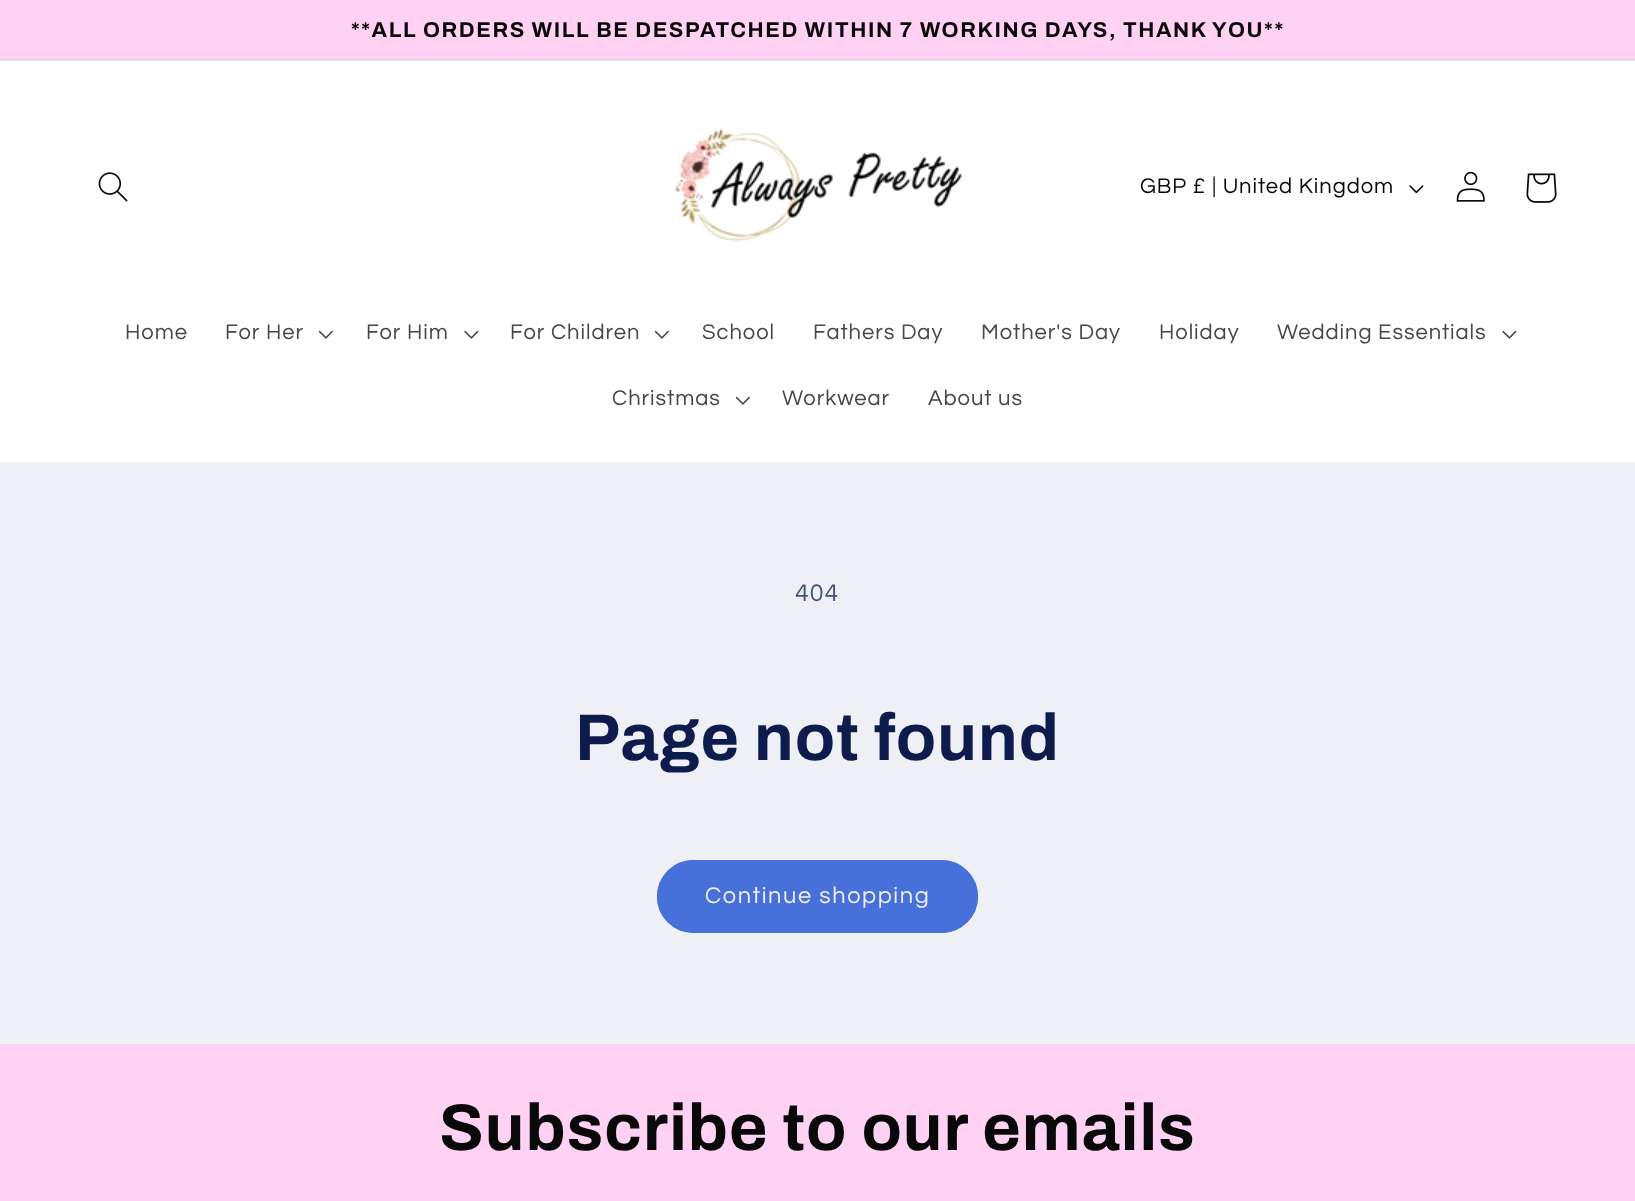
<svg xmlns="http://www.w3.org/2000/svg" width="1635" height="1201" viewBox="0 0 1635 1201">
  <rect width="100%" height="100%" fill="rgb(239,240,245)"/>
  <rect x="0" y="0" width="1635" height="59" fill="rgb(255,210,244)"/>
  <rect x="0" y="59" width="1635" height="1" fill="rgb(235,194,225)"/>
  <text x="351" y="37" font-family="Archivo" font-size="21.45" font-weight="bold" letter-spacing="1.58" fill="rgb(10,9,9)">**ALL ORDERS WILL BE DESPATCHED WITHIN 7 WORKING DAYS, THANK YOU**</text>
  <rect x="0" y="61" width="1635" height="401" fill="rgb(255,255,255)"/>
  <rect x="0" y="60" width="1635" height="1" fill="rgb(235,235,235)"/>
  <image x="98" y="172" width="30" height="30" href="pic1.png"/>
  <image x="674" y="128" width="288" height="114" href="pic2.png"/>
  <text x="1140" y="193" font-family="Questrial" font-size="22" letter-spacing="0.95" fill="rgb(10,9,9)">GBP £ | United Kingdom</text>
  <image x="1409" y="185" width="15" height="9" href="pic3.png"/>
  <image x="1456" y="171" width="29" height="31" href="pic4.png"/>
  <image x="1526" y="173" width="31" height="30" href="pic5.png"/>
  <g font-family="Questrial" font-size="22" letter-spacing="0.95" fill="rgb(71,71,71)">
    <text x="125" y="339">Home</text>
    <text x="225" y="339">For Her</text>
  </g>
  <image x="318" y="330" width="15" height="9" href="pic6.png"/>
  <text x="366" y="339" font-family="Questrial" font-size="22" letter-spacing="0.95" fill="rgb(71,71,71)">For Him</text>
  <image x="464" y="330" width="15" height="9" href="pic7.png"/>
  <text x="510" y="339" font-family="Questrial" font-size="22" letter-spacing="0.95" fill="rgb(71,71,71)">For Children</text>
  <image x="654" y="330" width="15" height="9" href="pic6.png"/>
  <g font-family="Questrial" font-size="22" letter-spacing="0.95" fill="rgb(71,71,71)">
    <text x="702" y="339">School</text>
    <text x="813" y="339">Fathers Day</text>
    <text x="981" y="339">Mother's Day</text>
    <text x="1159" y="339">Holiday</text>
    <text x="1277" y="339">Wedding Essentials</text>
  </g>
  <image x="1502" y="330" width="15" height="9" href="pic7.png"/>
  <text x="612" y="405" font-family="Questrial" font-size="22" letter-spacing="0.95" fill="rgb(71,71,71)">Christmas</text>
  <image x="735" y="396" width="15" height="9" href="pic6.png"/>
  <g font-family="Questrial" font-size="22" letter-spacing="0.95" fill="rgb(71,71,71)">
    <text x="782" y="405">Workwear</text>
    <text x="928" y="405">About us</text>
  </g>
  <text x="795" y="601" font-family="Questrial" font-size="25" letter-spacing="0.95" fill="rgb(70,80,119)">404</text>
  <text x="575" y="760" font-family="Archivo" font-size="66" font-weight="bold" letter-spacing="1" fill="rgb(14,27,77)">Page not found</text>
  <rect x="657" y="860" width="321" height="73" rx="36.5" fill="rgb(71,112,219)"/>
  <rect x="658" y="861" width="319" height="71" rx="35.5" fill="none" stroke="rgb(71,112,219)" stroke-width="2"/>
  <text x="705" y="903" font-family="Questrial" font-size="23.6" letter-spacing="1.58" fill="rgb(239,240,245)">Continue shopping</text>
  <rect x="0" y="1044" width="1635" height="157" fill="rgb(255,210,244)"/>
  <text x="439" y="1150" font-family="Archivo" font-size="66" font-weight="bold" letter-spacing="1" fill="rgb(10,9,9)">Subscribe to our emails</text>
</svg>
